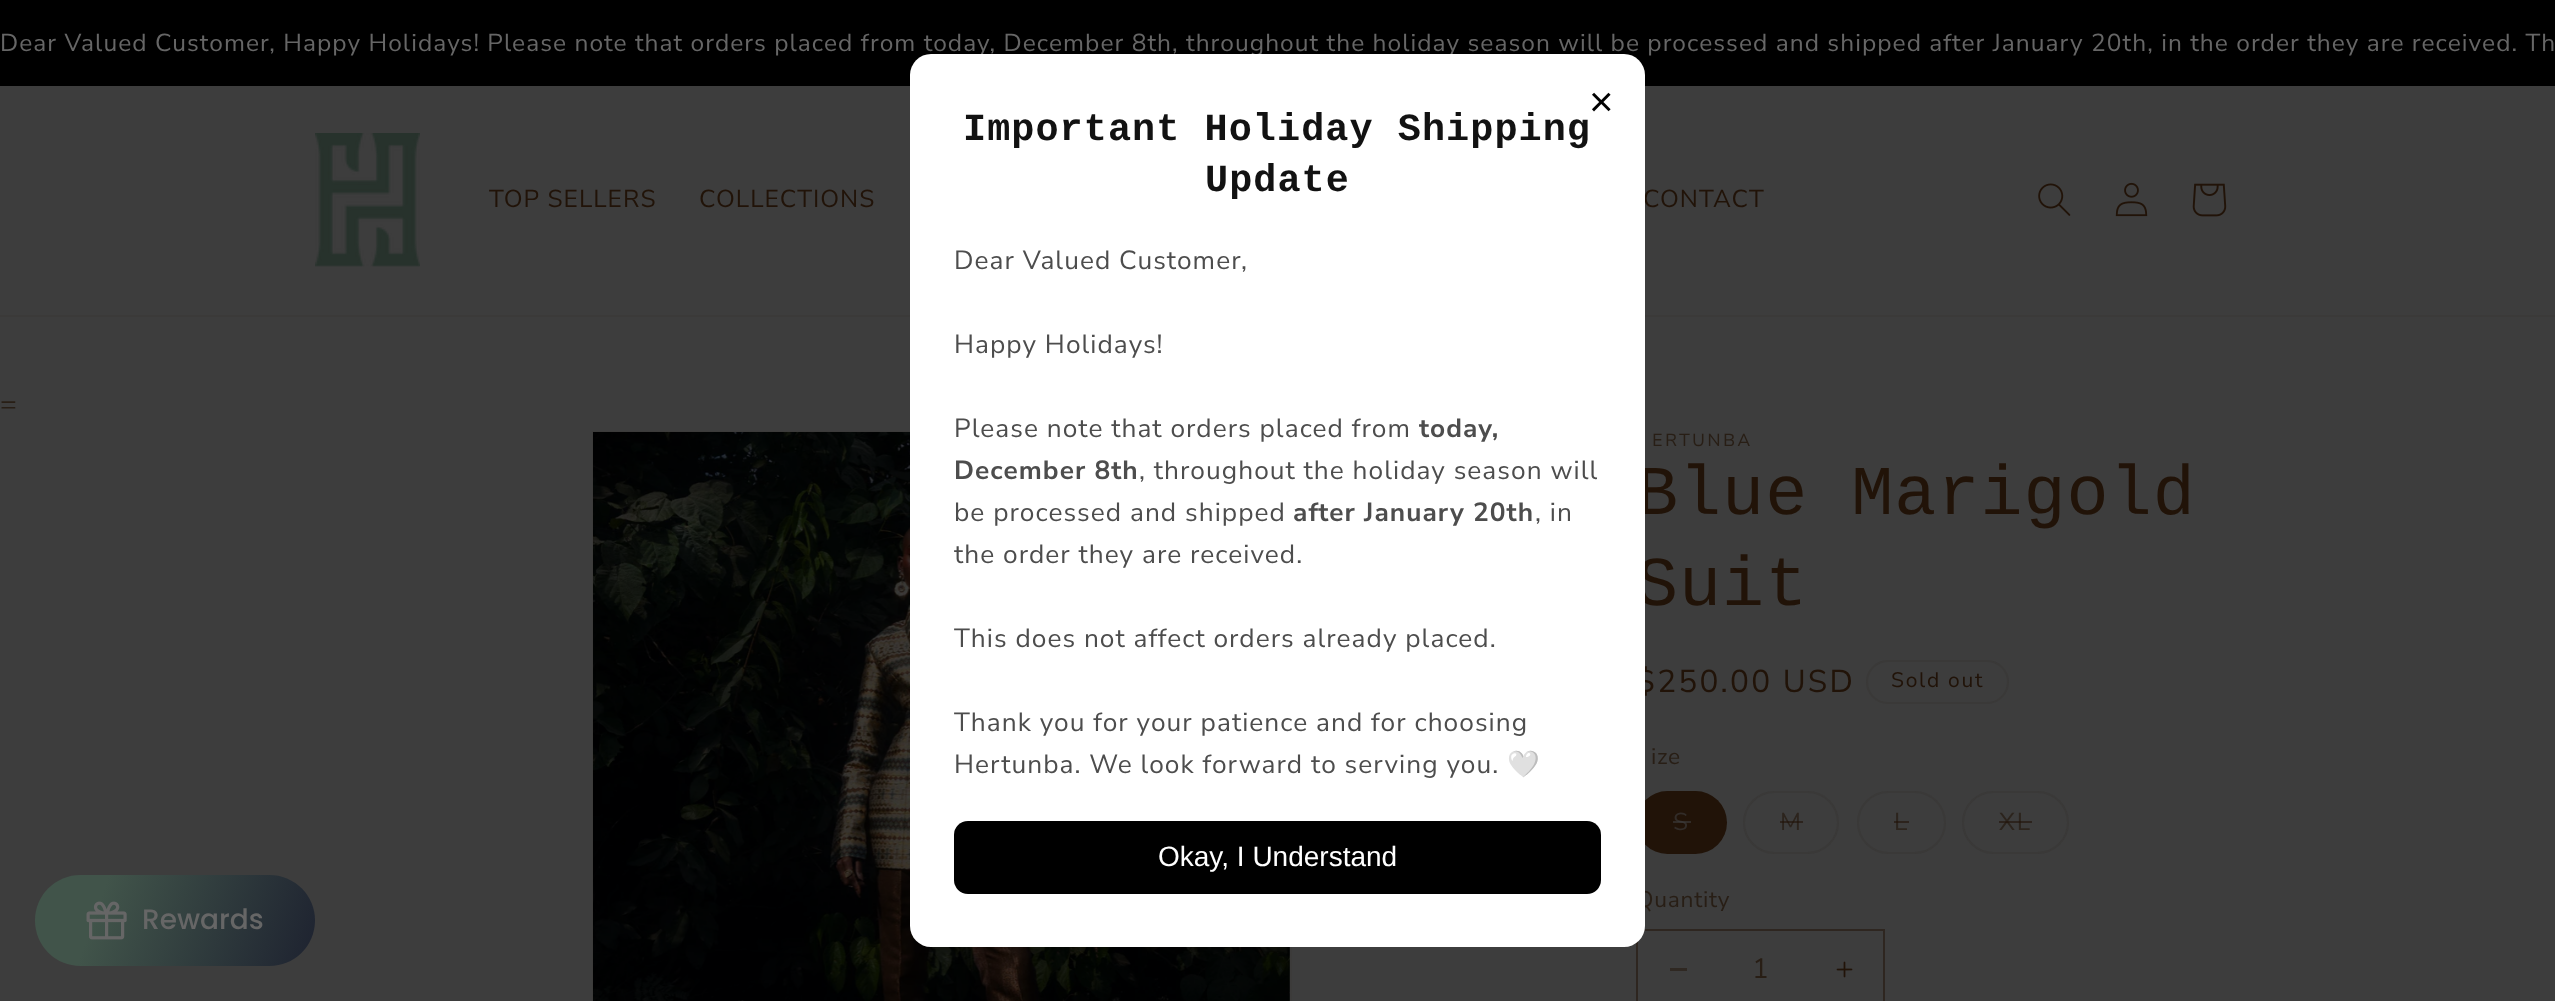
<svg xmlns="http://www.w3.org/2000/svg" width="2555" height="1001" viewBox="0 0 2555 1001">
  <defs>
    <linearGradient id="g1" gradientUnits="userSpaceOnUse" x1="36" y1="871" x2="425" y2="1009"><stop offset="0.17" stop-color="rgb(65,84,74)"/><stop offset="1" stop-color="rgb(11,8,34)"/></linearGradient>
  </defs>
  <rect width="100%" height="100%" fill="rgb(61,61,61)"/>
  <rect x="0" y="0" width="2555" height="86" fill="rgb(0,0,0)"/>
  <text x="0" y="51" font-family="Nunito Sans" font-size="24.5" letter-spacing="1.05" fill="rgb(102,102,102)">Dear Valued Customer, Happy Holidays! Please note that orders placed from today, December 8th, throughout the holiday season will be processed and shipped after January 20th, in the order they are received. Th</text>
  <rect x="0" y="315" width="2555" height="2" fill="rgb(59,58,57)"/>
  <text x="1643" y="207" font-family="Nunito Sans" font-size="24.5" letter-spacing="1.05" fill="rgb(33,19,8)">CONTACT</text>
  <rect x="593" y="432" width="698" height="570" fill="none" stroke="rgb(60,59,58)" stroke-width="2"/>
  <image x="593" y="432" width="697" height="569" href="pic5.png"/>
  <g font-family="Liberation Mono" font-size="70" letter-spacing="1.05" fill="rgb(33,19,8)">
    <text>
      <tspan x="1636" y="514">Blue Marigold</tspan>
      <tspan x="1636" y="605">Suit</tspan>
    </text>
  </g>
  <text x="1636" y="692" font-family="Nunito Sans" font-size="31.5" letter-spacing="2.25" fill="rgb(33,19,8)">$250.00 USD</text>
  <rect x="1636" y="791" width="91" height="63" rx="31.5" fill="rgb(33,19,8)"/>
  <text x="1636" y="907" font-family="Nunito Sans" font-size="22.75" letter-spacing="0.75" fill="rgb(40,30,21)">Quantity</text>
  <rect x="1670" y="968" width="17" height="3" fill="rgb(47,40,34)"/>
  <image x="1836" y="961" width="17" height="17" href="pic6.png"/>
  <rect x="1637" y="930" width="247" height="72" fill="none" stroke="rgb(46,38,32)" stroke-width="2"/>
  <rect x="910" y="54" width="735" height="893" rx="21" fill="rgb(255,255,255)"/>
  <text x="1589" y="116" font-family="Liberation Sans" font-size="42" fill="rgb(0,0,0)">×</text>
  <g font-family="Liberation Mono" font-size="38.5" font-weight="bold" letter-spacing="1.05" fill="rgb(18,18,18)">
    <text x="963" y="140">Important Holiday Shipping</text>
    <text x="1205" y="191">Update</text>
  </g>
  <g font-family="Nunito Sans" font-size="26.25" letter-spacing="1.05" fill="rgb(77,77,77)">
    <text x="954" y="269">Dear Valued Customer,</text>
    <text x="954" y="353">Happy Holidays!</text>
    <text x="954" y="437">Please note that orders placed from</text>
  </g>
  <g font-family="Nunito Sans" font-size="26.25" font-weight="bold" letter-spacing="1.05" fill="rgb(77,77,77)">
    <text x="1419" y="437">today,</text>
    <text x="954" y="479">December 8th</text>
  </g>
  <g font-family="Nunito Sans" font-size="26.25" letter-spacing="1.05" fill="rgb(77,77,77)">
    <text x="1139" y="479">, throughout the holiday season will</text>
    <text x="954" y="521">be processed and shipped</text>
  </g>
  <text x="1293" y="521" font-family="Nunito Sans" font-size="26.25" font-weight="bold" letter-spacing="1.05" fill="rgb(77,77,77)">after January 20th</text>
  <g font-family="Nunito Sans" font-size="26.25" letter-spacing="1.05" fill="rgb(77,77,77)">
    <text x="1535" y="521">, in</text>
    <text x="954" y="563">the order they are received.</text>
    <text x="954" y="647">This does not affect orders already placed.</text>
    <text>
      <tspan x="954" y="731">Thank you for your patience and for choosing</tspan>
      <tspan x="954" y="773">Hertunba. We look forward to serving you.</tspan>
    </text>
  </g>
  <text x="1507" y="773" font-family="Noto Color Emoji" font-size="26.25" letter-spacing="1.05" fill="rgb(77,77,77)">🤍</text>
  <rect x="954" y="821" width="647" height="73" rx="14" fill="rgb(0,0,0)"/>
  <text x="1158" y="866" font-family="Liberation Sans" font-size="28" fill="rgb(255,255,255)">Okay, I Understand</text>
  <image x="315" y="133" width="105" height="134" href="pic1.png"/>
  <g font-family="Nunito Sans" font-size="24.5" letter-spacing="1.05" fill="rgb(33,19,8)">
    <text x="489" y="207">TOP SELLERS</text>
    <text x="699" y="207">COLLECTIONS</text>
  </g>
  <image x="2038" y="183" width="33" height="33" href="pic2.png"/>
  <image x="2115" y="182" width="33" height="35" href="pic3.png"/>
  <image x="2192" y="183" width="35" height="34" href="pic4.png"/>
  <text x="0" y="413" font-family="Nunito Sans" font-size="28" letter-spacing="1.05" fill="rgb(40,30,21)">=</text>
  <text x="1652" y="446" font-family="'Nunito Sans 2'" font-size="17.5" letter-spacing="2.25" fill="rgb(40,30,21)">ERTUNBA</text>
  <rect x="1867" y="661" width="141" height="42" rx="21" fill="none" stroke="rgb(58,57,56)" stroke-width="2"/>
  <text x="1891" y="687" font-family="Nunito Sans" font-size="21" letter-spacing="1.75" fill="rgb(33,19,8)">Sold out</text>
  <text x="1651" y="764" font-family="Nunito Sans" font-size="22.75" letter-spacing="0.75" fill="rgb(40,30,21)">ize</text>
  <text x="1673" y="830" font-family="Nunito Sans" font-size="24.5" letter-spacing="1.75" fill="rgb(50,44,40)">S</text>
  <rect x="1673" y="821" width="18" height="2" fill="rgba(61,61,61,0.6)"/>
  <rect x="1744" y="792" width="94" height="61" rx="30.5" fill="none" stroke="rgb(58,57,56)" stroke-width="2"/>
  <text x="1780" y="830" font-family="Nunito Sans" font-size="24.5" letter-spacing="1.75" fill="rgb(44,36,29)">M</text>
  <rect x="1780" y="821" width="23" height="2" fill="rgba(33,19,8,0.6)"/>
  <rect x="1858" y="792" width="87" height="61" rx="30.5" fill="none" stroke="rgb(58,57,56)" stroke-width="2"/>
  <text x="1894" y="830" font-family="Nunito Sans" font-size="24.5" letter-spacing="1.75" fill="rgb(44,36,29)">L</text>
  <rect x="1894" y="821" width="15" height="2" fill="rgba(33,19,8,0.6)"/>
  <rect x="1963" y="792" width="105" height="61" rx="30.5" fill="none" stroke="rgb(58,57,56)" stroke-width="2"/>
  <text x="1999" y="830" font-family="Nunito Sans" font-size="24.5" letter-spacing="1.75" fill="rgb(44,36,29)">XL</text>
  <rect x="1999" y="821" width="33" height="2" fill="rgba(33,19,8,0.6)"/>
  <text x="1752" y="978" font-family="Nunito Sans" font-size="28" fill="rgb(40,30,21)">1</text>
  <rect x="35" y="875" width="280" height="91" rx="45.5" fill="url(#g1)"/>
  <image x="86" y="901" width="41" height="39" href="pic7.png"/>
  <text x="142" y="929" font-family="Poppins" font-size="28" font-weight="500" fill="rgb(102,102,102)">Rewards</text>
</svg>
